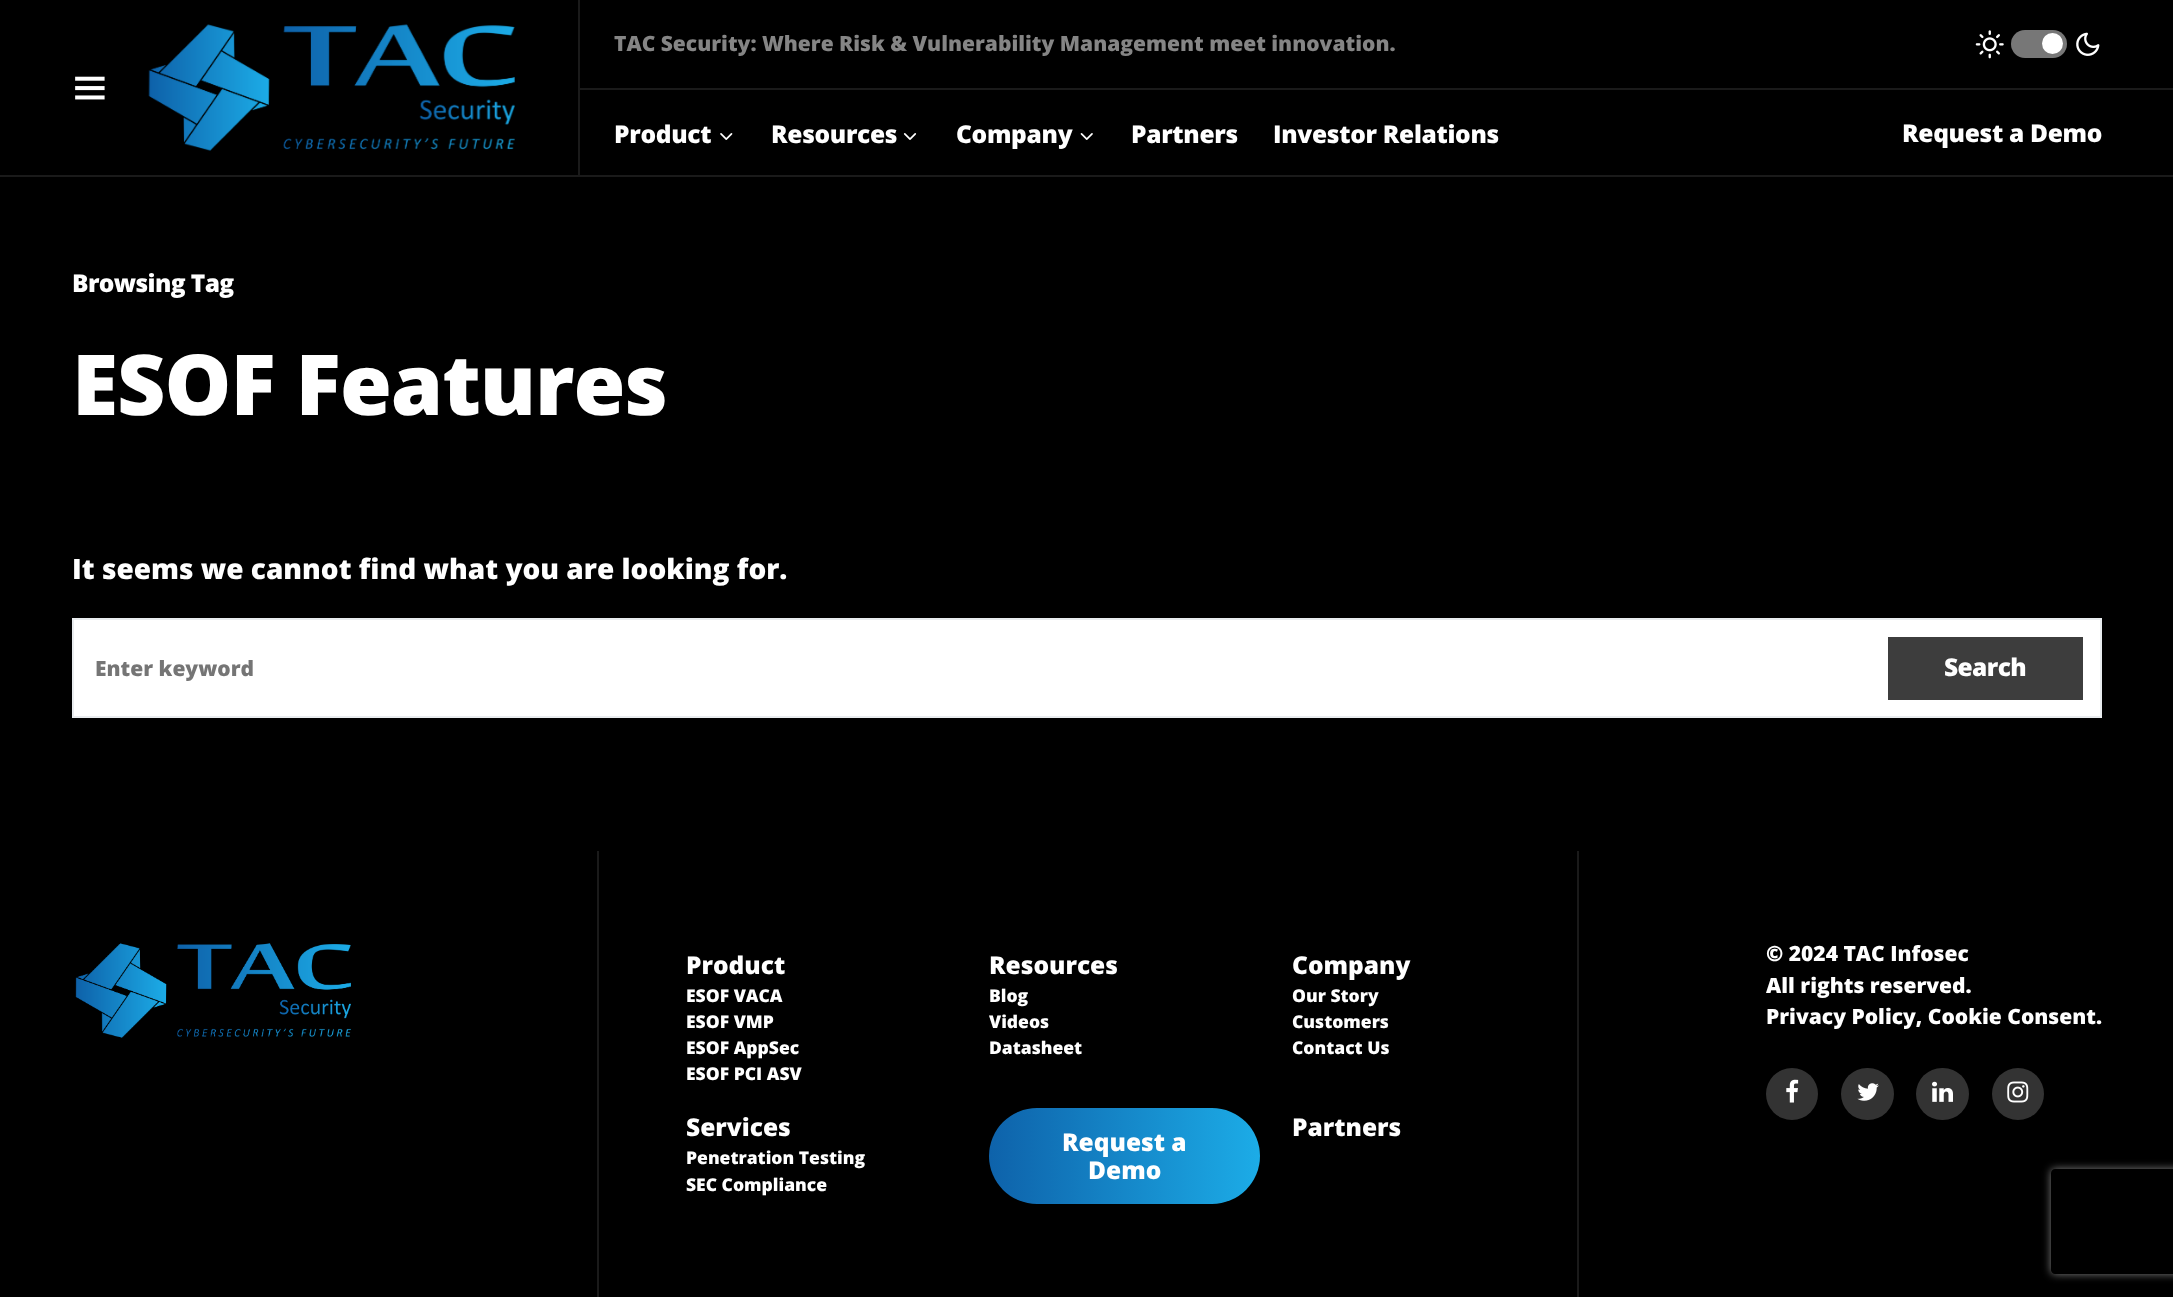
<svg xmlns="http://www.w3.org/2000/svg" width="2173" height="1297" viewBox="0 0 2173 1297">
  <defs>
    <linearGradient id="g1" gradientUnits="userSpaceOnUse" x1="989" y1="1156" x2="1260" y2="1156"><stop offset="0" stop-color="rgb(14,98,170)"/><stop offset="1" stop-color="rgb(28,172,231)"/></linearGradient>
    <clipPath id="clip1"><path d="M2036 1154H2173V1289H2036ZM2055 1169H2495C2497 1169 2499 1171 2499 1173V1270C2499 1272 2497 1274 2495 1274H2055C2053 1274 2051 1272 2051 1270V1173C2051 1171 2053 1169 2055 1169Z" clip-rule="evenodd"/></clipPath>
  </defs>
  <rect width="100%" height="100%" fill="rgb(0,0,0)"/>
  <rect x="0" y="175" width="2173" height="2" fill="rgb(26,26,26)"/>
  <image x="75" y="76" width="30" height="24" href="pic1.png"/>
  <rect x="578" y="0" width="2" height="175" fill="rgb(26,26,26)"/>
  <image x="148" y="24" width="367" height="127" href="pic2.png"/>
  <rect x="579" y="88" width="1594" height="2" fill="rgb(26,26,26)"/>
  <text x="614" y="51" font-family="Open Sans" font-size="21" font-weight="800" fill="rgb(133,133,133)">TAC Security: Where Risk &amp; Vulnerability Management meet innovation.</text>
  <image x="1975" y="30" width="29" height="29" href="pic3.png"/>
  <rect x="2011" y="30" width="56" height="28" rx="14" fill="rgb(119,119,119)"/>
  <circle cx="2052.5" cy="43.5" r="10.5" fill="rgb(255,255,255)"/>
  <image x="2076" y="32" width="24" height="24" href="pic4.png"/>
  <text x="614" y="143" font-family="Open Sans" font-size="24.5" font-weight="800" letter-spacing="-0.3" fill="rgb(255,255,255)">Product</text>
  <image x="720" y="133" width="13" height="7" href="pic5.png"/>
  <text x="771" y="143" font-family="Open Sans" font-size="24.5" font-weight="800" letter-spacing="-0.3" fill="rgb(255,255,255)">Resources</text>
  <image x="903" y="133" width="14" height="7" href="pic6.png"/>
  <text x="956" y="143" font-family="Open Sans" font-size="24.5" font-weight="800" letter-spacing="-0.3" fill="rgb(255,255,255)">Company</text>
  <image x="1080" y="133" width="13" height="7" href="pic7.png"/>
  <g font-family="Open Sans" font-size="24.5" font-weight="800" letter-spacing="-0.3" fill="rgb(255,255,255)">
    <text x="1131" y="143">Partners</text>
    <text x="1273" y="143">Investor Relations</text>
    <text x="1902" y="142">Request a Demo</text>
  </g>
  <text x="72" y="292" font-family="Open Sans" font-size="24.5" font-weight="800" letter-spacing="-0.6" fill="rgb(255,255,255)">Browsing Tag</text>
  <text x="72" y="415" font-family="Open Sans" font-size="84" font-weight="800" letter-spacing="-1" fill="rgb(255,255,255)">ESOF Features</text>
  <text x="72" y="579" font-family="Open Sans" font-size="28" font-weight="800" fill="rgb(255,255,255)">It seems we cannot find what you are looking for.</text>
  <rect x="73" y="619" width="2028" height="98" fill="rgb(255,255,255)" stroke="rgb(233,236,239)" stroke-width="2"/>
  <text x="95" y="676" font-family="Open Sans" font-size="21" font-weight="800" fill="rgb(117,117,117)">Enter keyword</text>
  <rect x="1888" y="637" width="195" height="63" fill="rgb(61,61,61)"/>
  <text x="1944" y="676" font-family="Open Sans" font-size="24.5" font-weight="800" letter-spacing="-0.6" fill="rgb(255,255,255)">Search</text>
  <image x="75" y="943" width="276" height="95" href="pic8.png"/>
  <rect x="597" y="851" width="2" height="446" fill="rgb(26,26,26)"/>
  <text x="686" y="974" font-family="Open Sans" font-size="24.5" font-weight="800" fill="rgb(255,255,255)">Product</text>
  <g font-family="Open Sans" font-size="17.5" font-weight="800" fill="rgb(255,255,255)">
    <text>
      <tspan x="686" y="1002">ESOF VACA</tspan>
      <tspan x="686" y="1028">ESOF VMP</tspan>
      <tspan x="686" y="1054">ESOF AppSec</tspan>
      <tspan x="686" y="1080">ESOF PCI ASV</tspan>
    </text>
  </g>
  <text x="989" y="974" font-family="Open Sans" font-size="24.5" font-weight="800" fill="rgb(255,255,255)">Resources</text>
  <g font-family="Open Sans" font-size="17.5" font-weight="800" fill="rgb(255,255,255)">
    <text>
      <tspan x="989" y="1002">Blog</tspan>
      <tspan x="989" y="1028">Videos</tspan>
      <tspan x="989" y="1054">Datasheet</tspan>
    </text>
  </g>
  <text x="1292" y="974" font-family="Open Sans" font-size="24.5" font-weight="800" fill="rgb(255,255,255)">Company</text>
  <g font-family="Open Sans" font-size="17.5" font-weight="800" fill="rgb(255,255,255)">
    <text>
      <tspan x="1292" y="1002">Our Story</tspan>
      <tspan x="1292" y="1028">Customers</tspan>
      <tspan x="1292" y="1054">Contact Us</tspan>
    </text>
  </g>
  <text x="686" y="1136" font-family="Open Sans" font-size="24.5" font-weight="800" fill="rgb(255,255,255)">Services</text>
  <g font-family="Open Sans" font-size="17.5" font-weight="800" fill="rgb(255,255,255)">
    <text>
      <tspan x="686" y="1164">Penetration Testing</tspan>
      <tspan x="686" y="1191">SEC Compliance</tspan>
    </text>
  </g>
  <text x="1292" y="1136" font-family="Open Sans" font-size="24.5" font-weight="800" fill="rgb(255,255,255)">Partners</text>
  <rect x="989" y="1108" width="271" height="96" rx="48" fill="url(#g1)"/>
  <g font-family="Open Sans" font-size="24.5" font-weight="800" fill="rgb(255,255,255)">
    <text x="1062" y="1151">Request a</text>
    <text x="1088" y="1179">Demo</text>
  </g>
  <rect x="1577" y="851" width="2" height="446" fill="rgb(26,26,26)"/>
  <g font-family="Open Sans" font-size="21" font-weight="800" fill="rgb(255,255,255)">
    <text>
      <tspan x="1766" y="961">© 2024 TAC Infosec</tspan>
      <tspan x="1766" y="993">All rights reserved.</tspan>
      <tspan x="1766" y="1024">Privacy Policy, Cookie Consent.</tspan>
    </text>
  </g>
  <circle cx="1792" cy="1094" r="26" fill="rgb(51,51,51)"/>
  <image x="1786" y="1079" width="13" height="24" href="pic9.png"/>
  <rect x="1841" y="1068" width="53" height="52" rx="26" fill="rgb(51,51,51)"/>
  <image x="1857" y="1083" width="22" height="18" href="pic10.png"/>
  <rect x="1916" y="1068" width="53" height="52" rx="26" fill="rgb(51,51,51)"/>
  <image x="1932" y="1081" width="21" height="21" href="pic11.png"/>
  <circle cx="2018" cy="1094" r="26" fill="rgb(51,51,51)"/>
  <image x="2007" y="1081" width="22" height="22" href="pic12.png"/>
  <g clip-path="url(#clip1)">
    <rect x="2051" y="1169" width="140" height="105" rx="4" fill="rgb(128,128,128)" filter="blur(4.5px)"/>
  </g>
</svg>
